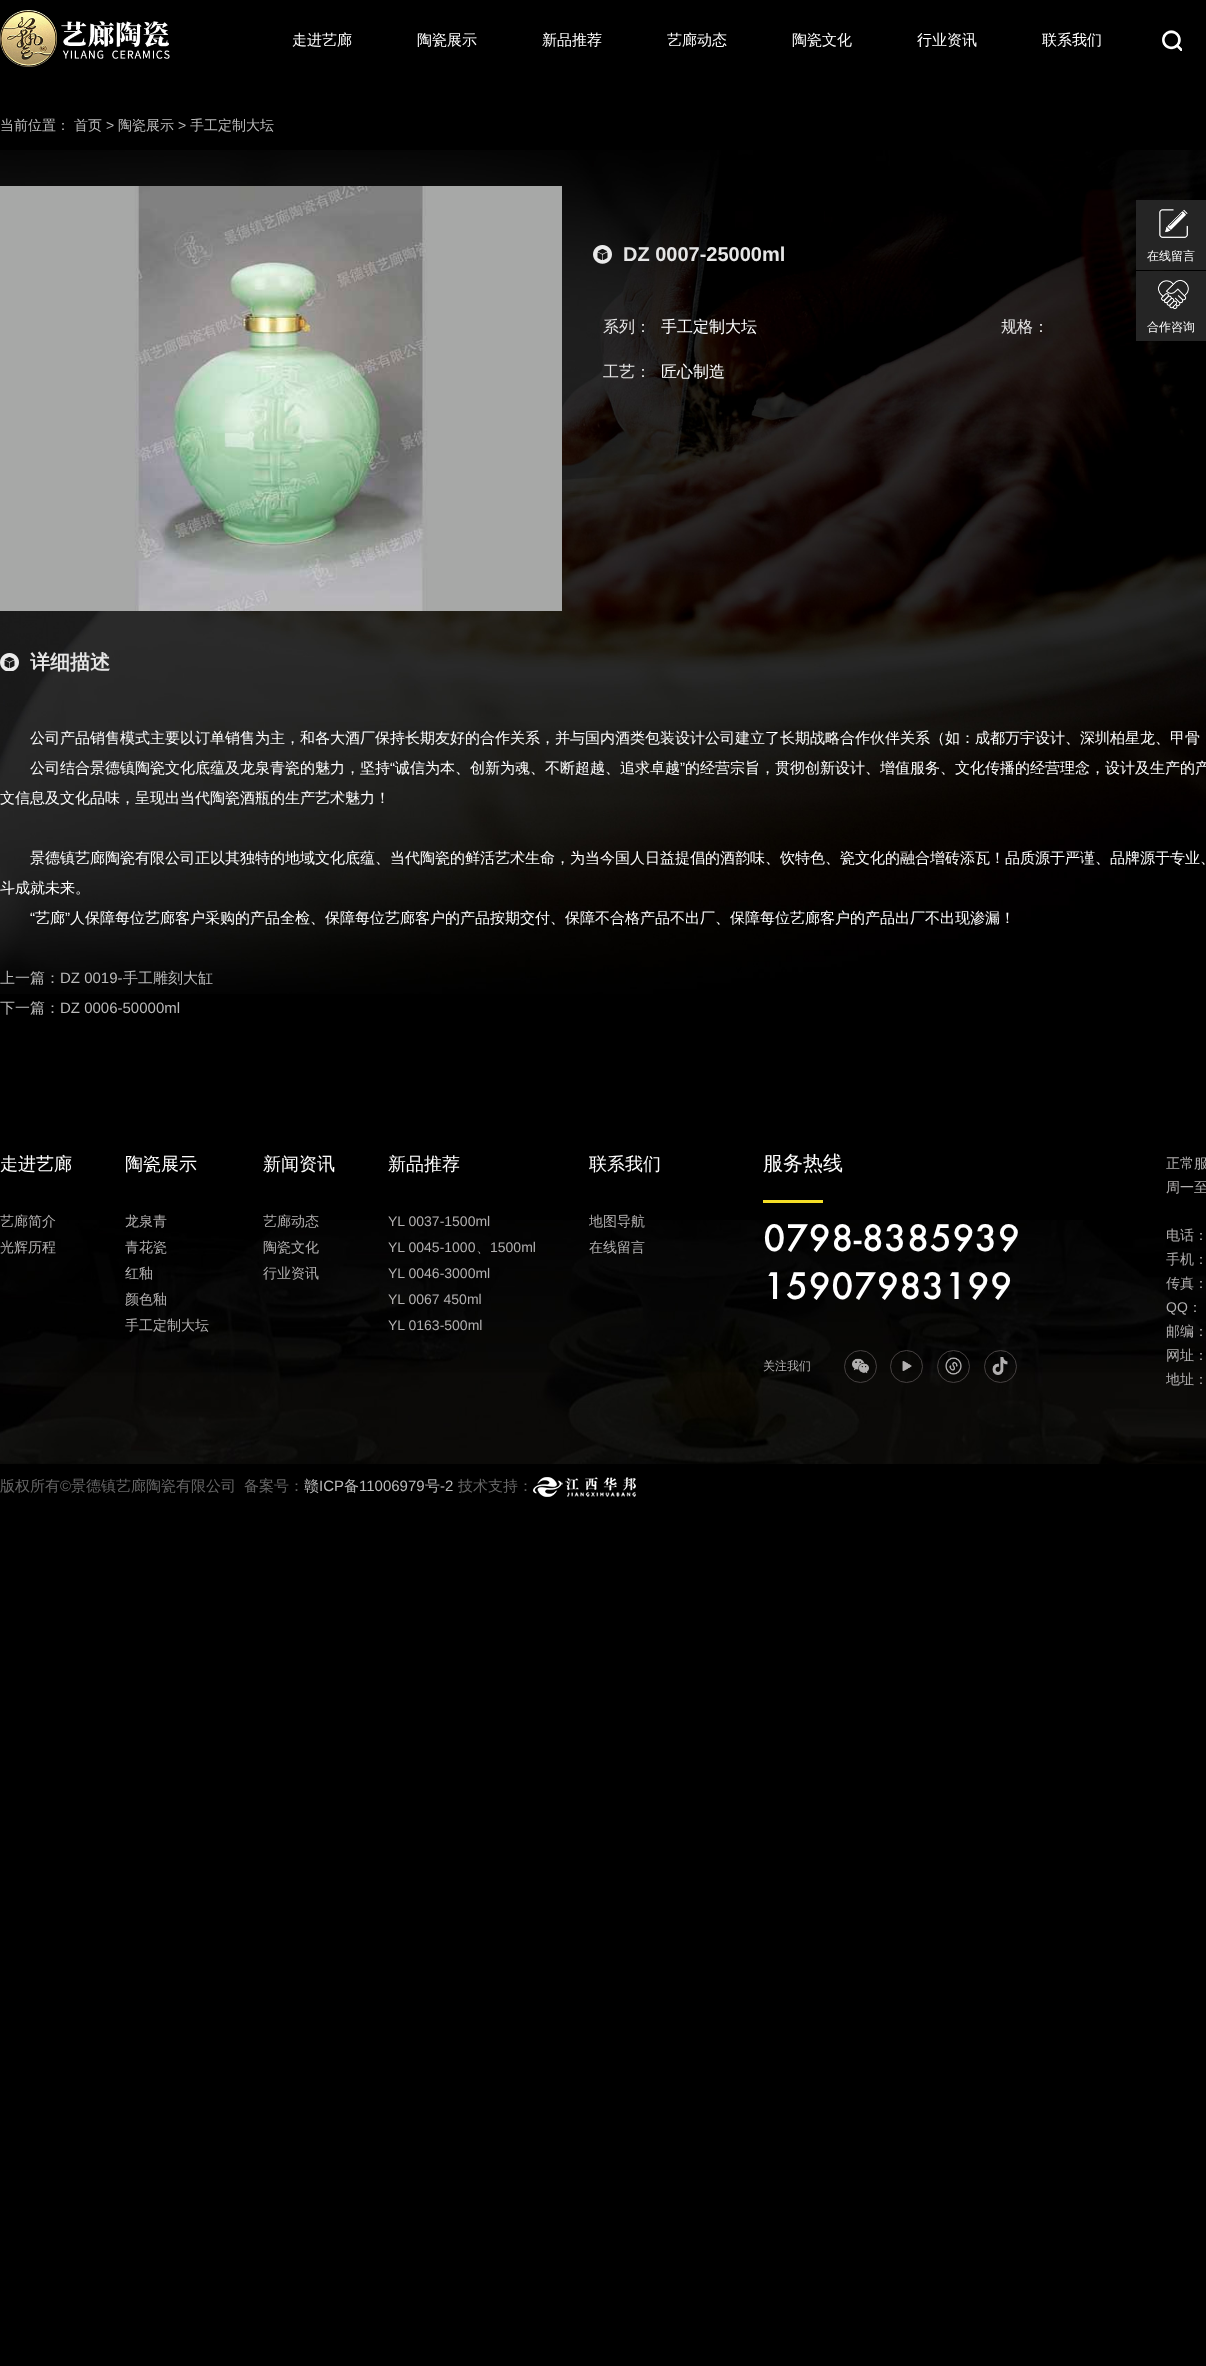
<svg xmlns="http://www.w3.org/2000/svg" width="1206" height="2366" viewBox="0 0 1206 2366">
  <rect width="100%" height="100%" fill="rgb(0,0,0)"/>
  <image x="0" y="10" width="170" height="57" href="pic1.png"/>
  <g font-family="WenQuanYi Zen Hei" font-size="15" font-weight="500" fill="rgb(255,255,255)">
    <text x="292" y="45">走进艺廊</text>
    <text x="417" y="45">陶瓷展示</text>
    <text x="542" y="45">新品推荐</text>
    <text x="667" y="45">艺廊动态</text>
    <text x="792" y="45">陶瓷文化</text>
    <text x="917" y="45">行业资讯</text>
    <text x="1042" y="45">联系我们</text>
  </g>
  <image x="1162" y="30" width="20" height="21" href="pic2.png"/>
  <g font-family="WenQuanYi Zen Hei" font-size="14" font-weight="500" fill="rgb(187,187,187)">
    <text x="0" y="130">当前位置：</text>
    <text x="74" y="130">首页</text>
  </g>
  <text x="106" y="130" font-family="Liberation Sans" font-size="14" fill="rgb(187,187,187)">&gt;</text>
  <text x="118" y="130" font-family="WenQuanYi Zen Hei" font-size="14" font-weight="500" fill="rgb(187,187,187)">陶瓷展示</text>
  <text x="178" y="130" font-family="Liberation Sans" font-size="14" fill="rgb(187,187,187)">&gt;</text>
  <text x="190" y="130" font-family="WenQuanYi Zen Hei" font-size="14" font-weight="500" fill="rgb(187,187,187)">手工定制大坛</text>
  <image x="0" y="150" width="1206" height="844" href="pic3.png"/>
  <image x="0" y="186" width="562" height="425" href="pic4.png"/>
  <image x="593" y="245" width="19" height="19" href="pic5.png"/>
  <text x="623" y="261" font-family="Liberation Sans" font-size="20" font-weight="bold" fill="rgb(230,230,230)">DZ 0007-25000ml</text>
  <text x="603" y="332" font-family="WenQuanYi Zen Hei" font-size="16" font-weight="500" fill="rgb(230,230,230)">系列：</text>
  <text x="661" y="332" font-family="WenQuanYi Zen Hei" font-size="16" font-weight="500" fill="rgb(255,255,255)">手工定制大坛</text>
  <g font-family="WenQuanYi Zen Hei" font-size="16" font-weight="500" fill="rgb(230,230,230)">
    <text x="1001" y="332">规格：</text>
    <text x="603" y="377">工艺：</text>
  </g>
  <text x="661" y="377" font-family="WenQuanYi Zen Hei" font-size="16" font-weight="500" fill="rgb(255,255,255)">匠心制造</text>
  <image x="0" y="653" width="19" height="18" href="pic6.png"/>
  <text x="30" y="669" font-family="WenQuanYi Zen Hei" font-size="20" font-weight="bold" fill="rgb(230,230,230)">详细描述</text>
  <g font-family="WenQuanYi Zen Hei" font-size="15" font-weight="500" fill="rgb(255,255,255)">
    <text x="30" y="743">公司产品销售模式主要以订单销售为主，和各大酒厂保持长期友好的合作关系，并与国内酒类包装设计公司建立了长期战略合作伙伴关系（如：成都万宇设计、深圳柏星龙、甲骨</text>
    <text x="30" y="773">公司结合景德镇陶瓷文化底蕴及龙泉青瓷的魅力，坚持</text>
  </g>
  <text x="390" y="773" font-family="Liberation Sans" font-size="15" fill="rgb(255,255,255)">“</text>
  <text x="395" y="773" font-family="WenQuanYi Zen Hei" font-size="15" font-weight="500" fill="rgb(255,255,255)">诚信为本、创新为魂、不断超越、追求卓越</text>
  <text x="680" y="773" font-family="Liberation Sans" font-size="15" fill="rgb(255,255,255)">”</text>
  <g font-family="WenQuanYi Zen Hei" font-size="15" font-weight="500" fill="rgb(255,255,255)">
    <text x="685" y="773">的经营宗旨，贯彻创新设计、增值服务、文化传播的经营理念，设计及生产的产</text>
    <text x="0" y="803">文信息及文化品味，呈现出当代陶瓷酒瓶的生产艺术魅力！</text>
    <text x="30" y="863">景德镇艺廊陶瓷有限公司正以其独特的地域文化底蕴、当代陶瓷的鲜活艺术生命，为当今国人日益提倡的酒韵味、饮特色、瓷文化的融合增砖添瓦！品质源于严谨、品牌源于专业、</text>
    <text x="0" y="893">斗成就未来。</text>
  </g>
  <text x="30" y="923" font-family="Liberation Sans" font-size="15" fill="rgb(255,255,255)">“</text>
  <text x="35" y="923" font-family="WenQuanYi Zen Hei" font-size="15" font-weight="500" fill="rgb(255,255,255)">艺廊</text>
  <text x="65" y="923" font-family="Liberation Sans" font-size="15" fill="rgb(255,255,255)">”</text>
  <text x="70" y="923" font-family="WenQuanYi Zen Hei" font-size="15" font-weight="500" fill="rgb(255,255,255)">人保障每位艺廊客户采购的产品全检、保障每位艺廊客户的产品按期交付、保障不合格产品不出厂、保障每位艺廊客户的产品出厂不出现渗漏！</text>
  <text x="0" y="983" font-family="WenQuanYi Zen Hei" font-size="15" font-weight="500" fill="rgb(187,187,187)">上一篇：</text>
  <text x="60" y="983" font-family="Liberation Sans" font-size="15" fill="rgb(187,187,187)">DZ 0019-</text>
  <g font-family="WenQuanYi Zen Hei" font-size="15" font-weight="500" fill="rgb(187,187,187)">
    <text x="123" y="983">手工雕刻大缸</text>
    <text x="0" y="1013">下一篇：</text>
  </g>
  <text x="60" y="1013" font-family="Liberation Sans" font-size="15" fill="rgb(187,187,187)">DZ 0006-50000ml</text>
  <rect x="1136" y="200" width="70" height="70" fill="rgb(37,37,37)"/>
  <image x="1159" y="209" width="29" height="29" href="pic7.png"/>
  <text x="1147" y="260" font-family="WenQuanYi Zen Hei" font-size="12" font-weight="500" fill="rgb(255,255,255)">在线留言</text>
  <rect x="1136" y="271" width="70" height="70" fill="rgb(37,37,37)"/>
  <image x="1157" y="279" width="32" height="31" href="pic8.png"/>
  <text x="1147" y="331" font-family="WenQuanYi Zen Hei" font-size="12" font-weight="500" fill="rgb(255,255,255)">合作咨询</text>
  <image x="0" y="1220" width="1206" height="244" href="pic9.png"/>
  <text x="0" y="1170" font-family="WenQuanYi Zen Hei" font-size="18" font-weight="500" fill="rgb(255,255,255)">走进艺廊</text>
  <g font-family="WenQuanYi Zen Hei" font-size="14" font-weight="500" fill="rgb(178,176,176)">
    <text>
      <tspan x="0" y="1226">艺廊简介</tspan>
      <tspan x="0" y="1252">光辉历程</tspan>
    </text>
  </g>
  <text x="125" y="1170" font-family="WenQuanYi Zen Hei" font-size="18" font-weight="500" fill="rgb(255,255,255)">陶瓷展示</text>
  <g font-family="WenQuanYi Zen Hei" font-size="14" font-weight="500" fill="rgb(178,176,176)">
    <text>
      <tspan x="125" y="1226">龙泉青</tspan>
      <tspan x="125" y="1252">青花瓷</tspan>
      <tspan x="125" y="1278">红釉</tspan>
      <tspan x="125" y="1304">颜色釉</tspan>
      <tspan x="125" y="1330">手工定制大坛</tspan>
    </text>
  </g>
  <text x="263" y="1170" font-family="WenQuanYi Zen Hei" font-size="18" font-weight="500" fill="rgb(255,255,255)">新闻资讯</text>
  <g font-family="WenQuanYi Zen Hei" font-size="14" font-weight="500" fill="rgb(178,176,176)">
    <text>
      <tspan x="263" y="1226">艺廊动态</tspan>
      <tspan x="263" y="1252">陶瓷文化</tspan>
      <tspan x="263" y="1278">行业资讯</tspan>
    </text>
  </g>
  <text x="388" y="1170" font-family="WenQuanYi Zen Hei" font-size="18" font-weight="500" fill="rgb(255,255,255)">新品推荐</text>
  <g font-family="Liberation Sans" font-size="14" fill="rgb(178,176,176)">
    <text>
      <tspan x="388" y="1226">YL 0037-1500ml</tspan>
      <tspan x="388" y="1252">YL 0045-1000</tspan>
    </text>
  </g>
  <text x="476" y="1252" font-family="WenQuanYi Zen Hei" font-size="14" font-weight="500" fill="rgb(178,176,176)">、</text>
  <g font-family="Liberation Sans" font-size="14" fill="rgb(178,176,176)">
    <text x="490" y="1252">1500ml</text>
    <text>
      <tspan x="388" y="1278">YL 0046-3000ml</tspan>
      <tspan x="388" y="1304">YL 0067 450ml</tspan>
      <tspan x="388" y="1330">YL 0163-500ml</tspan>
    </text>
  </g>
  <text x="589" y="1170" font-family="WenQuanYi Zen Hei" font-size="18" font-weight="500" fill="rgb(255,255,255)">联系我们</text>
  <g font-family="WenQuanYi Zen Hei" font-size="14" font-weight="500" fill="rgb(178,176,176)">
    <text>
      <tspan x="589" y="1226">地图导航</tspan>
      <tspan x="589" y="1252">在线留言</tspan>
    </text>
  </g>
  <text x="763" y="1170" font-family="WenQuanYi Zen Hei" font-size="20" font-weight="500" fill="rgb(255,255,255)">服务热线</text>
  <rect x="763" y="1200" width="60" height="3" fill="rgb(244,222,38)"/>
  <g font-family="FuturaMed" font-size="40" fill="rgb(255,255,255)">
    <text>
      <tspan x="763" y="1251">0798-8385939</tspan>
      <tspan x="763" y="1299">15907983199</tspan>
    </text>
  </g>
  <text x="763" y="1370" font-family="WenQuanYi Zen Hei" font-size="12" font-weight="500" fill="rgb(178,176,176)">关注我们</text>
  <circle cx="860.5" cy="1366.5" r="16" fill="none" stroke="rgb(70,65,65)"/>
  <image x="852" y="1358" width="17" height="16" href="pic10.png"/>
  <circle cx="906.5" cy="1366.5" r="16" fill="none" stroke="rgb(70,65,65)"/>
  <image x="902" y="1361" width="10" height="10" href="pic11.png"/>
  <circle cx="953.5" cy="1366.5" r="16" fill="none" stroke="rgb(70,65,65)"/>
  <image x="945" y="1357" width="17" height="18" href="pic12.png"/>
  <circle cx="1000.5" cy="1366.5" r="16" fill="none" stroke="rgb(70,65,65)"/>
  <image x="992" y="1357" width="16" height="18" href="pic13.png"/>
  <g font-family="WenQuanYi Zen Hei" font-size="14" font-weight="500" fill="rgb(178,176,176)">
    <text>
      <tspan x="1166" y="1168">正常服</tspan>
      <tspan x="1166" y="1192">周一至</tspan>
    </text>
    <text>
      <tspan x="1166" y="1240">电话：</tspan>
      <tspan x="1166" y="1264">手机：</tspan>
      <tspan x="1166" y="1288">传真：</tspan>
    </text>
  </g>
  <text x="1166" y="1312" font-family="Liberation Sans" font-size="14" fill="rgb(178,176,176)">QQ</text>
  <g font-family="WenQuanYi Zen Hei" font-size="14" font-weight="500" fill="rgb(178,176,176)">
    <text x="1188" y="1312">：</text>
    <text>
      <tspan x="1166" y="1336">邮编：</tspan>
      <tspan x="1166" y="1360">网址：</tspan>
      <tspan x="1166" y="1384">地址：</tspan>
    </text>
  </g>
  <text x="0" y="1491" font-family="WenQuanYi Zen Hei" font-size="15" font-weight="500" fill="rgb(102,102,102)">版权所有</text>
  <text x="60" y="1491" font-family="Liberation Sans" font-size="15" fill="rgb(102,102,102)">©</text>
  <g font-family="WenQuanYi Zen Hei" font-size="15" font-weight="500" fill="rgb(102,102,102)">
    <text x="71" y="1491">景德镇艺廊陶瓷有限公司</text>
    <text x="244" y="1491">备案号：</text>
  </g>
  <text x="304" y="1491" font-family="WenQuanYi Zen Hei" font-size="15" font-weight="500" fill="rgb(187,187,187)">赣</text>
  <text x="319" y="1491" font-family="Liberation Sans" font-size="15" fill="rgb(187,187,187)">ICP</text>
  <text x="344" y="1491" font-family="WenQuanYi Zen Hei" font-size="15" font-weight="500" fill="rgb(187,187,187)">备</text>
  <text x="359" y="1491" font-family="Liberation Sans" font-size="15" fill="rgb(187,187,187)">11006979</text>
  <text x="425" y="1491" font-family="WenQuanYi Zen Hei" font-size="15" font-weight="500" fill="rgb(187,187,187)">号</text>
  <text x="440" y="1491" font-family="Liberation Sans" font-size="15" fill="rgb(187,187,187)">-2</text>
  <text x="458" y="1491" font-family="WenQuanYi Zen Hei" font-size="15" font-weight="500" fill="rgb(102,102,102)">技术支持：</text>
  <image x="533" y="1477" width="103" height="20" href="pic14.png"/>
</svg>
